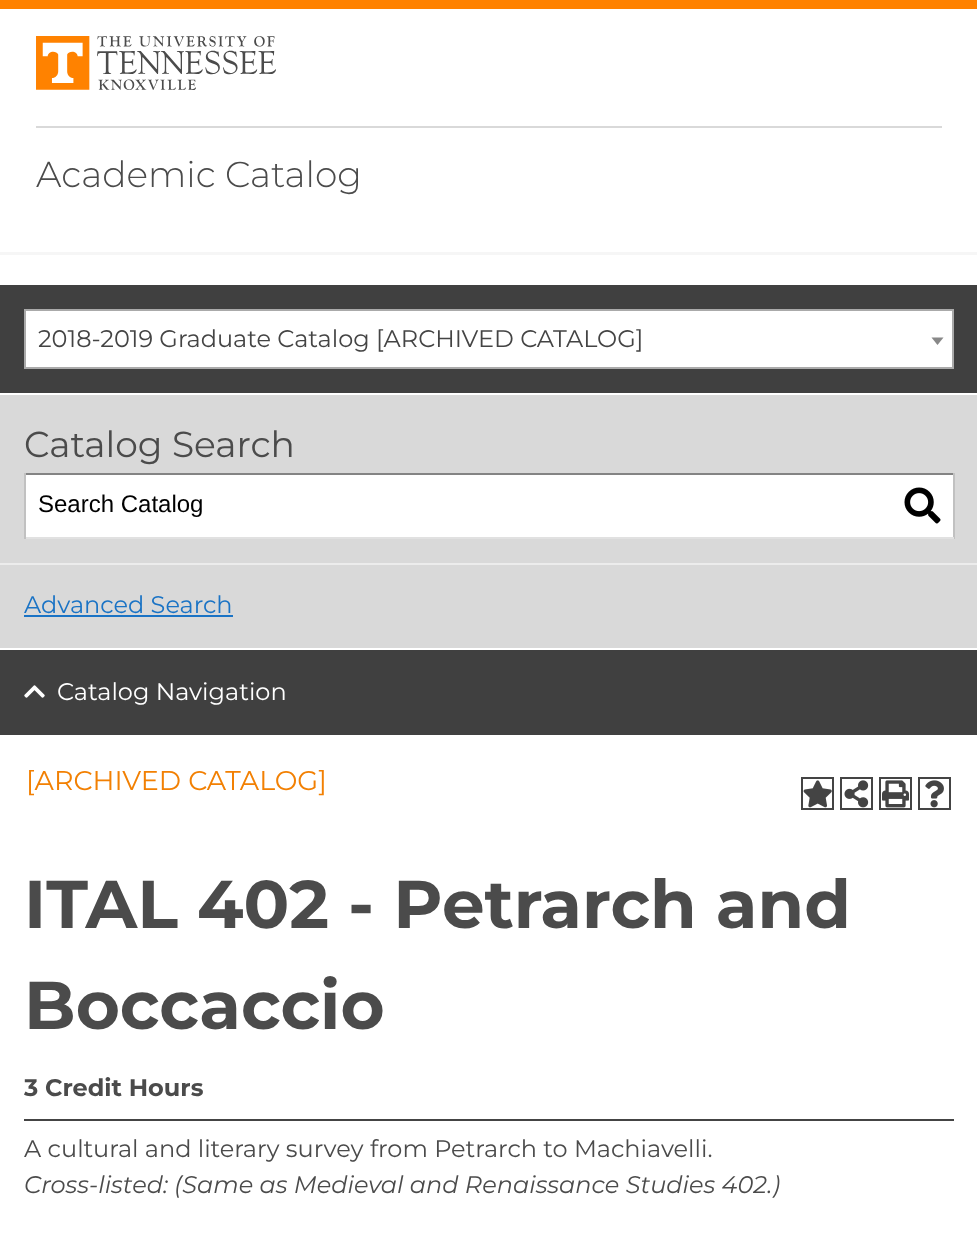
<svg xmlns="http://www.w3.org/2000/svg" width="977" height="1240" viewBox="0 0 977 1240">
  <rect width="100%" height="100%" fill="rgb(255,255,255)"/>
  <rect x="0" y="0" width="977" height="9" fill="rgb(255,130,0)"/>
  <image x="36" y="36" width="240" height="54" href="pic1.png"/>
  <rect x="36" y="126" width="906" height="2" fill="rgb(217,217,217)"/>
  <text x="36" y="187" font-family="Montserrat" font-size="36" font-weight="300" fill="rgb(75,75,75)">Academic Catalog</text>
  <rect x="0" y="252" width="977" height="3" fill="rgb(246,246,246)"/>
  <rect x="0" y="285" width="977" height="108" fill="rgb(64,64,64)"/>
  <rect x="25" y="310" width="928" height="58" fill="rgb(255,255,255)" stroke="rgb(170,170,170)" stroke-width="2"/>
  <text x="38" y="347" font-family="Montserrat" font-size="24" fill="rgb(68,68,68)">2018-2019 Graduate Catalog [ARCHIVED CATALOG]</text>
  <path d="M931.5 337.5H943.5L937.5 345Z" fill="rgb(136,136,136)"/>
  <rect x="0" y="395" width="977" height="253" fill="rgb(217,217,217)"/>
  <text x="24" y="457" font-family="Montserrat" font-size="36" fill="rgb(75,75,75)">Catalog Search</text>
  <rect x="26" y="475" width="927" height="62" fill="rgb(255,255,255)"/>
  <rect x="24" y="473" width="930" height="2" fill="rgb(132,132,132)"/>
  <rect x="953" y="473" width="2" height="66" fill="rgb(193,193,193)"/>
  <rect x="24" y="537" width="930" height="2" fill="rgb(225,225,225)"/>
  <rect x="24" y="473" width="2" height="66" fill="rgb(193,193,193)"/>
  <text x="38" y="512" font-family="Liberation Sans" font-size="24" fill="rgb(0,0,0)">Search Catalog</text>
  <image x="904" y="487" width="37" height="37" href="pic2.png"/>
  <rect x="0" y="563" width="977" height="2" fill="rgb(236,236,236)"/>
  <text x="24" y="613" font-family="Montserrat" font-size="24" fill="rgb(26,115,197)">Advanced Search</text>
  <rect x="24" y="615" width="209" height="2" fill="rgb(26,115,197)"/>
  <rect x="0" y="650" width="977" height="85" fill="rgb(64,64,64)"/>
  <image x="24" y="685" width="21" height="13" href="pic3.png"/>
  <text x="57" y="700" font-family="Montserrat" font-size="24" fill="rgb(255,255,255)">Catalog Navigation</text>
  <text x="26" y="790" font-family="Montserrat" font-size="27" fill="rgb(242,128,3)">[ARCHIVED CATALOG]</text>
  <rect x="802" y="778" width="31" height="31" fill="none" stroke="rgb(68,68,68)" stroke-width="2"/>
  <image x="803" y="780" width="29" height="28" href="pic4.png"/>
  <rect x="841" y="778" width="31" height="31" fill="none" stroke="rgb(68,68,68)" stroke-width="2"/>
  <image x="844" y="780" width="25" height="28" href="pic5.png"/>
  <rect x="880" y="778" width="31" height="31" fill="none" stroke="rgb(68,68,68)" stroke-width="2"/>
  <image x="882" y="780" width="27" height="28" href="pic6.png"/>
  <rect x="919" y="778" width="31" height="31" fill="none" stroke="rgb(68,68,68)" stroke-width="2"/>
  <image x="925" y="780" width="19" height="28" href="pic7.png"/>
  <g font-family="Montserrat" font-size="67.5" font-weight="bold" fill="rgb(75,75,75)">
    <text>
      <tspan x="24" y="928">ITAL 402 - Petrarch and</tspan>
      <tspan x="24" y="1029">Boccaccio</tspan>
    </text>
  </g>
  <g font-family="Montserrat" font-size="24" font-weight="bold" fill="rgb(75,75,75)">
    <text x="24" y="1096">3</text>
    <text x="45" y="1096">Credit Hours</text>
  </g>
  <rect x="24" y="1119" width="930" height="2" fill="rgb(68,68,68)"/>
  <text x="24" y="1157" font-family="Montserrat" font-size="24" fill="rgb(75,75,75)">A cultural and literary survey from Petrarch to Machiavelli.</text>
  <text x="24" y="1193" font-family="Montserrat" font-size="24" font-style="italic" fill="rgb(75,75,75)">Cross-listed: (Same as Medieval and Renaissance Studies 402.)</text>
</svg>
